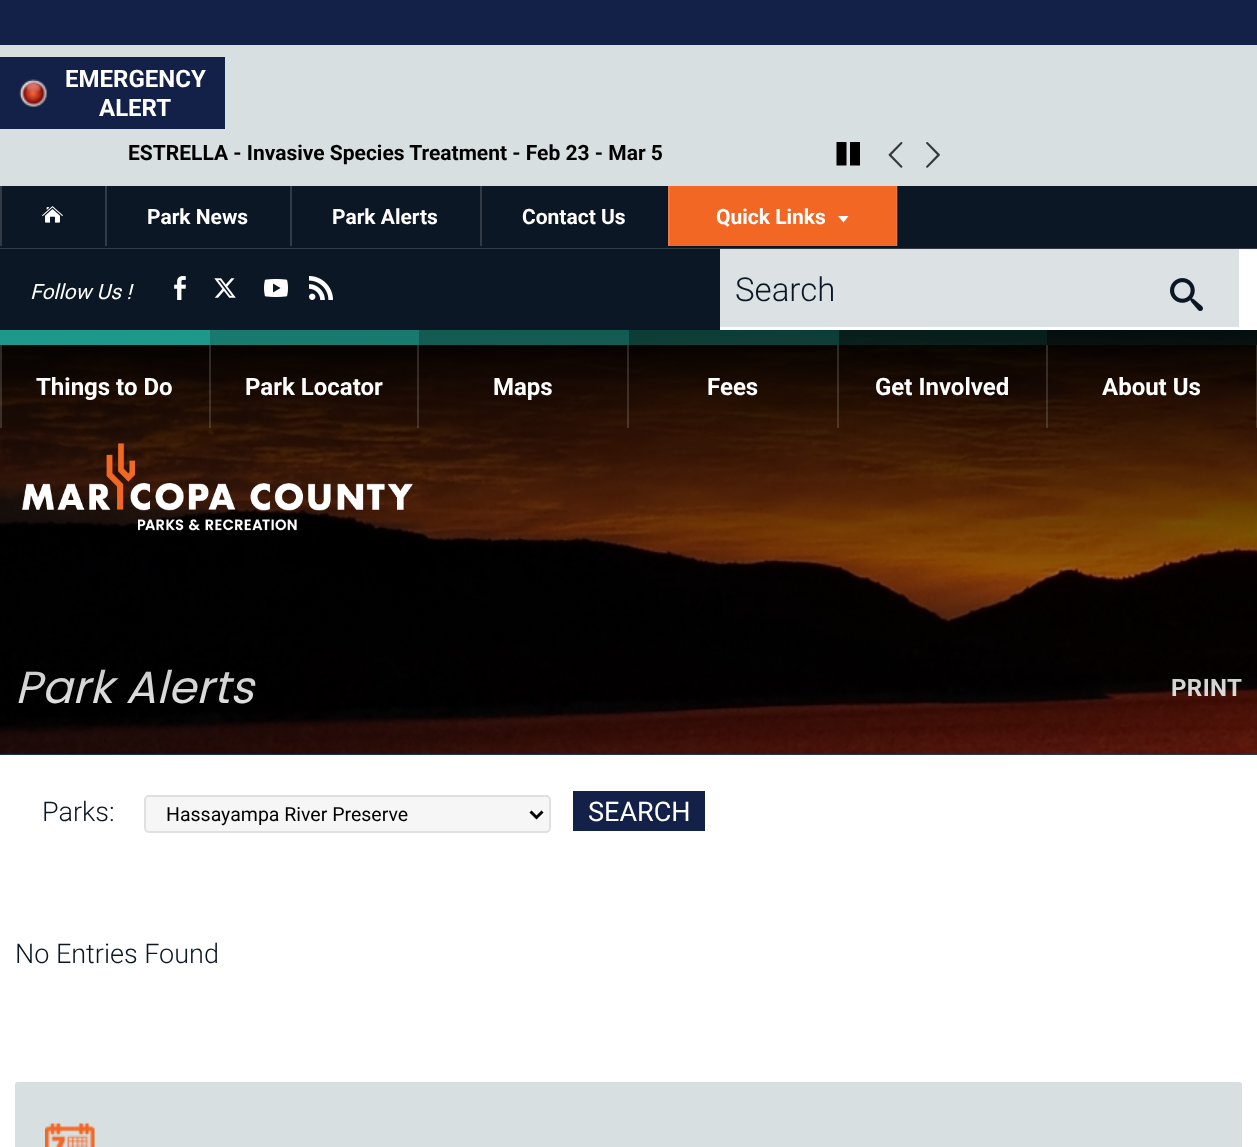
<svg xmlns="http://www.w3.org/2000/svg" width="1257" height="1147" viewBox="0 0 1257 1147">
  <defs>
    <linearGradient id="g1" gradientUnits="userSpaceOnUse" x1="629" y1="330" x2="629" y2="755"><stop offset="0" stop-color="rgb(0,0,0)"/><stop offset="1" stop-color="rgb(0,0,0)" stop-opacity="0"/></linearGradient>
  </defs>
  <rect width="100%" height="100%" fill="rgb(255,255,255)"/>
  <rect x="720" y="250" width="519" height="77" fill="rgb(220,226,228)"/>
  <rect x="1239" y="249" width="18" height="1" fill="rgb(243,243,243)"/>
  <rect x="720" y="249" width="519" height="1" fill="rgb(219,225,227)"/>
  <rect x="0" y="0" width="1257" height="45" fill="rgb(19,32,72)"/>
  <rect x="0" y="45" width="1257" height="141" fill="rgb(216,223,225)"/>
  <rect x="0" y="57" width="225" height="72" fill="rgb(19,32,72)"/>
  <image x="19" y="79" width="29" height="29" href="pic1.png"/>
  <g font-family="Roboto" font-size="24" font-weight="bold" fill="rgb(255,255,255)">
    <text x="65" y="87">EMERGENCY</text>
    <text x="99" y="116">ALERT</text>
  </g>
  <text x="128" y="160" font-family="Roboto" font-size="21" font-weight="bold" fill="rgb(0,0,0)">ESTRELLA - Invasive Species Treatment - Feb 23 - Mar 5</text>
  <path d="M836.5 142H846.5V165.5H836.5ZM850 142H860V165.5H850Z" fill="rgb(0,0,0)"/>
  <image x="888" y="142" width="15" height="26" href="pic2.png"/>
  <image x="926" y="142" width="14" height="26" href="pic3.png"/>
  <rect x="0" y="186" width="1257" height="62" fill="rgb(12,23,37)"/>
  <rect x="897" y="186" width="1" height="60" fill="rgb(49,58,69)"/>
  <rect x="0" y="248" width="1257" height="1" fill="rgb(49,58,69)"/>
  <rect x="0" y="186" width="2" height="60" fill="rgb(49,58,69)"/>
  <image x="42" y="206" width="21" height="17" href="pic4.png"/>
  <rect x="105" y="186" width="2" height="60" fill="rgb(49,58,69)"/>
  <text x="147" y="224" font-family="Roboto" font-size="21" font-weight="bold" fill="rgb(255,255,255)">Park News</text>
  <rect x="290" y="186" width="2" height="60" fill="rgb(49,58,69)"/>
  <text x="332" y="224" font-family="Roboto" font-size="21" font-weight="bold" fill="rgb(255,255,255)">Park Alerts</text>
  <rect x="480" y="186" width="2" height="60" fill="rgb(49,58,69)"/>
  <text x="522" y="224" font-family="Roboto" font-size="21" font-weight="bold" fill="rgb(255,255,255)">Contact Us</text>
  <rect x="670" y="186" width="226" height="60" fill="rgb(242,103,36)"/>
  <rect x="896" y="186" width="1" height="60" fill="rgb(233,122,68)"/>
  <rect x="668" y="186" width="2" height="60" fill="rgb(233,122,68)"/>
  <text x="716" y="224" font-family="Roboto" font-size="21" font-weight="bold" fill="rgb(255,255,255)">Quick Links</text>
  <path d="M848.5 216H838L843.5 222.5Z" fill="rgb(255,255,255)"/>
  <rect x="0" y="249" width="720" height="81" fill="rgb(12,23,37)"/>
  <text x="30" y="299" font-family="Roboto" font-size="21" font-style="italic" fill="rgb(255,255,255)">Follow Us !</text>
  <image x="174" y="276" width="12" height="24" href="pic5.png"/>
  <image x="214" y="278" width="22" height="20" href="pic6.png"/>
  <image x="264" y="279" width="24" height="18" href="pic7.png"/>
  <image x="309" y="276" width="24" height="24" href="pic8.png"/>
  <text x="735" y="301" font-family="Roboto" font-size="33" font-weight="300" fill="rgb(12,23,37)">Search</text>
  <image x="1170" y="278" width="33" height="33" href="pic9.png"/>
  <rect x="0" y="754" width="1257" height="1" fill="rgb(25,66,121)"/>
  <image x="0" y="333" width="1257" height="422" href="pic10.png"/>
  <text x="15" y="703" font-family="Poppins" font-size="45" font-style="italic" letter-spacing="0.4" fill="rgb(255,255,255)">Park Alerts</text>
  <text x="1171" y="696" font-family="Roboto" font-size="24" font-weight="bold" letter-spacing="0.4" fill="rgb(255,255,255)">PRINT</text>
  <rect x="0" y="330" width="1257" height="414" fill="url(#g1)"/>
  <rect x="0" y="330" width="210" height="15" fill="rgb(30,152,138)"/>
  <rect x="209" y="345" width="2" height="83" fill="rgba(196,196,195,0.2)"/>
  <rect x="0" y="345" width="2" height="83" fill="rgba(196,196,195,0.2)"/>
  <text x="36" y="395" font-family="Roboto" font-size="24" font-weight="bold" fill="rgb(255,255,255)">Things to Do</text>
  <rect x="210" y="330" width="209" height="15" fill="rgba(30,152,138,0.8)"/>
  <rect x="417" y="345" width="2" height="83" fill="rgba(196,196,195,0.2)"/>
  <text x="245" y="395" font-family="Roboto" font-size="24" font-weight="bold" fill="rgb(255,255,255)">Park Locator</text>
  <rect x="419" y="330" width="210" height="15" fill="rgba(30,152,138,0.6)"/>
  <rect x="627" y="345" width="2" height="83" fill="rgba(196,196,195,0.2)"/>
  <text x="493" y="395" font-family="Roboto" font-size="24" font-weight="bold" fill="rgb(255,255,255)">Maps</text>
  <rect x="629" y="330" width="210" height="15" fill="rgba(30,152,138,0.4)"/>
  <rect x="837" y="345" width="2" height="83" fill="rgba(196,196,195,0.2)"/>
  <text x="707" y="395" font-family="Roboto" font-size="24" font-weight="bold" fill="rgb(255,255,255)">Fees</text>
  <rect x="839" y="330" width="208" height="15" fill="rgba(30,152,138,0.2)"/>
  <rect x="1046" y="345" width="2" height="83" fill="rgba(196,196,195,0.2)"/>
  <text x="875" y="395" font-family="Roboto" font-size="24" font-weight="bold" fill="rgb(255,255,255)">Get Involved</text>
  <rect x="1047" y="330" width="210" height="15" fill="rgba(30,152,138,0.1)"/>
  <rect x="1256" y="345" width="1" height="83" fill="rgba(196,196,195,0.2)"/>
  <text x="1102" y="395" font-family="Roboto" font-size="24" font-weight="bold" fill="rgb(255,255,255)">About Us</text>
  <image x="22" y="443" width="391" height="88" href="pic11.png"/>
  <text x="42" y="821" font-family="Roboto" font-size="27" font-weight="300" fill="rgb(12,23,37)">Parks:</text>
  <rect x="145" y="796" width="405" height="36" rx="4" fill="rgb(246,246,246)" stroke="rgb(225,223,223)" stroke-width="2"/>
  <path d="M530.5 811.5L536.5 817.5L542.5 811.5" fill="none" stroke="rgb(0,0,0)" stroke-width="3"/>
  <text x="166" y="821" font-family="Roboto" font-size="19.5" fill="rgb(0,0,0)">Hassayampa River Preserve</text>
  <rect x="573" y="791" width="132" height="40" fill="rgb(19,32,72)"/>
  <text x="588" y="821" font-family="Roboto" font-size="27" fill="rgb(255,255,255)">SEARCH</text>
  <text x="15" y="963" font-family="Roboto" font-size="27" font-weight="300" fill="rgb(12,23,37)">No Entries Found</text>
  <rect x="15" y="1082" width="1227" height="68" rx="3" fill="rgb(216,223,225)"/>
  <image x="45" y="1123" width="50" height="24" href="pic12.png"/>
</svg>
